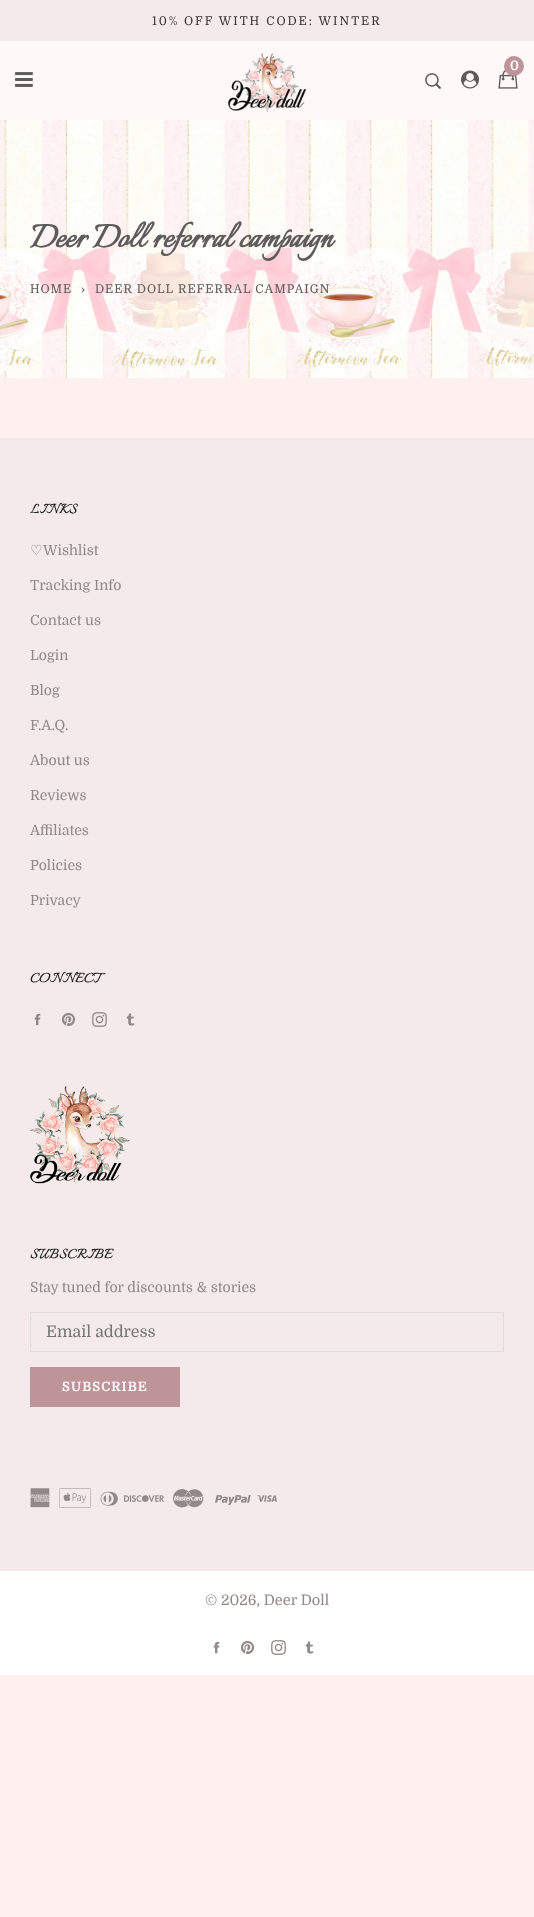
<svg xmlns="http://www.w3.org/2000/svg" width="534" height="1917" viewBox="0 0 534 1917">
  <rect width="100%" height="100%" fill="rgb(255,240,240)"/>
  <rect x="0" y="0" width="534" height="41" fill="rgb(245,234,234)"/>
  <text x="152" y="25" font-family="Domine" font-size="12" letter-spacing="2" fill="rgb(60,54,54)">10% OFF WITH CODE: WINTER</text>
  <rect x="0" y="41" width="534" height="78" fill="rgb(255,248,248)"/>
  <rect x="0" y="119" width="534" height="1" fill="rgb(255,252,252)"/>
  <image x="228" y="53" width="78" height="59" href="pic1.png"/>
  <image x="498" y="70" width="20" height="19" href="pic2.png"/>
  <circle cx="514" cy="66" r="10" fill="rgb(190,147,153)"/>
  <text x="510" y="70" font-family="Domine" font-size="13" font-weight="bold" fill="rgb(255,255,255)">0</text>
  <image x="425" y="73" width="16" height="16" href="pic3.png"/>
  <image x="461" y="70" width="18" height="19" href="pic4.png"/>
  <image x="15" y="72" width="18" height="15" href="pic5.png"/>
  <image x="0" y="120" width="534" height="258" href="pic6.png"/>
  <text x="30" y="247" font-family="Italianno" font-size="40" font-weight="bold" fill="rgb(94,91,91)">Deer Doll referral campaign</text>
  <g font-family="Domine" font-size="12" letter-spacing="1" fill="rgb(94,91,91)">
    <text x="30" y="293">HOME</text>
    <text x="81" y="293">›</text>
    <text x="95" y="293">DEER DOLL REFERRAL CAMPAIGN</text>
  </g>
  <rect x="0" y="438" width="534" height="1133" fill="rgb(245,234,234)"/>
  <text x="30" y="513" font-family="Italianno" font-size="16" font-weight="bold" letter-spacing="1" fill="rgb(34,34,34)">LINKS</text>
  <text x="30" y="555" font-family="DejaVu Sans" font-size="14" fill="rgb(147,136,136)">♡</text>
  <g font-family="Domine" font-size="14" fill="rgb(147,136,136)">
    <text x="43" y="555">Wishlist</text>
    <text x="30" y="590">Tracking Info</text>
    <text x="30" y="625">Contact us</text>
    <text x="30" y="660">Login</text>
    <text x="30" y="695">Blog</text>
    <text x="30" y="730">F.A.Q.</text>
    <text x="30" y="765">About us</text>
    <text x="30" y="800">Reviews</text>
    <text x="30" y="835">Affiliates</text>
    <text x="30" y="870">Policies</text>
    <text x="30" y="905">Privacy</text>
  </g>
  <text x="30" y="982" font-family="Italianno" font-size="16" font-weight="bold" letter-spacing="1" fill="rgb(34,34,34)">CONNECT</text>
  <image x="34" y="1013" width="7" height="13" href="pic7.png"/>
  <image x="62" y="1013" width="13" height="13" href="pic8.png"/>
  <image x="92" y="1012" width="15" height="15" href="pic9.png"/>
  <image x="126" y="1013" width="9" height="13" href="pic10.png"/>
  <image x="30" y="1086" width="100" height="98" href="pic11.png"/>
  <text x="30" y="1258" font-family="Italianno" font-size="16" font-weight="bold" letter-spacing="1" fill="rgb(34,34,34)">SUBSCRIBE</text>
  <text x="30" y="1292" font-family="Domine" font-size="14" fill="rgb(147,136,136)">Stay tuned for discounts &amp; stories</text>
  <rect x="30.5" y="1312.5" width="473" height="39" fill="none" stroke="rgb(221,221,221)"/>
  <text x="46" y="1337" font-family="Domine" font-size="16" fill="rgb(117,117,117)">Email address</text>
  <rect x="30" y="1367" width="150" height="40" fill="rgb(190,147,153)"/>
  <text x="62" y="1391" font-family="Domine" font-size="13" font-weight="bold" letter-spacing="1" fill="rgb(255,255,255)">SUBSCRIBE</text>
  <image x="30" y="1488" width="20" height="20" href="pic12.png"/>
  <image x="59" y="1488" width="32" height="20" href="pic13.png"/>
  <image x="100" y="1491" width="18" height="15" href="pic14.png"/>
  <image x="124" y="1495" width="40" height="7" href="pic15.png"/>
  <image x="173" y="1489" width="31" height="19" href="pic16.png"/>
  <image x="215" y="1495" width="36" height="11" href="pic17.png"/>
  <image x="257" y="1495" width="20" height="7" href="pic18.png"/>
  <rect x="0" y="1571" width="534" height="104" fill="rgb(255,255,255)"/>
  <text x="205" y="1605" font-family="Domine" font-size="14.5" fill="rgb(147,136,136)">© 2026, Deer Doll</text>
  <image x="213" y="1641" width="7" height="13" href="pic19.png"/>
  <image x="241" y="1640" width="13" height="15" href="pic20.png"/>
  <image x="271" y="1640" width="15" height="15" href="pic21.png"/>
  <image x="305" y="1641" width="9" height="13" href="pic22.png"/>
</svg>
